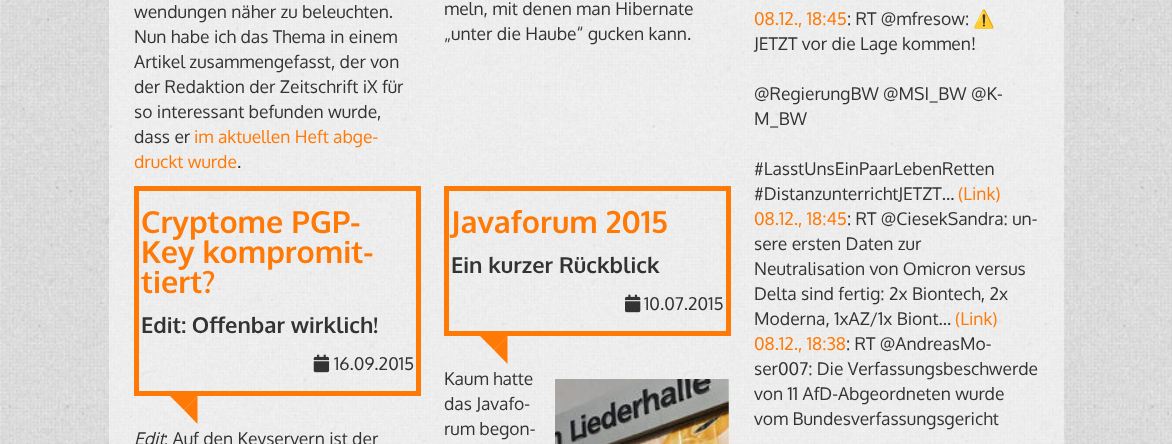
<svg xmlns="http://www.w3.org/2000/svg" width="1172" height="444" viewBox="0 0 1172 444">
  <rect width="100%" height="100%" fill="rgb(255,255,255)"/>
  <image x="0" y="0" width="1172" height="444" href="pic1.png"/>
  <rect x="109" y="0" width="955" height="444" fill="rgba(255,255,255,0.5)"/>
  <g font-family="Oxygen" font-size="17.5" fill="rgb(51,51,51)">
    <text>
      <tspan x="134" y="18">wendungen näher zu beleuchten.</tspan>
      <tspan x="134" y="43">Nun habe ich das Thema in einem</tspan>
      <tspan x="134" y="68">Artikel zusammengefasst, der von</tspan>
      <tspan x="134" y="93">der Redaktion der Zeitschrift iX für</tspan>
      <tspan x="134" y="118">so interessant befunden wurde,</tspan>
      <tspan x="134" y="143">dass er</tspan>
    </text>
  </g>
  <g font-family="Oxygen" font-size="17.5" fill="rgb(255,121,6)">
    <text x="194" y="143">im aktuellen Heft abge-</text>
    <text x="134" y="168">druckt wurde</text>
  </g>
  <g font-family="Oxygen" font-size="17.5" fill="rgb(51,51,51)">
    <text x="237" y="168">.</text>
    <text>
      <tspan x="444" y="15">meln, mit denen man Hibernate</tspan>
      <tspan x="444" y="40">„unter die Haube“ gucken kann.</tspan>
    </text>
  </g>
  <rect x="136.5" y="188.5" width="282" height="205" fill="none" stroke="rgb(255,121,6)" stroke-width="5"/>
  <g font-family="Oxygen" font-size="30.5" font-weight="bold" fill="rgb(255,121,6)">
    <text>
      <tspan x="141" y="233">Cryptome PGP-</tspan>
      <tspan x="141" y="263">Key kompromit-</tspan>
      <tspan x="141" y="293">tiert?</tspan>
    </text>
  </g>
  <text x="141" y="333" font-family="Oxygen" font-size="21.9" font-weight="bold" fill="rgb(51,51,51)">Edit: Offenbar wirklich!</text>
  <image x="313" y="354" width="17" height="19" href="pic2.png"/>
  <text x="334" y="370" font-family="Oxygen" font-size="17.5" fill="rgb(51,51,51)">16.09.2015</text>
  <path d="M170 396H197.5L184 410Z" fill="rgb(255,121,6)"/>
  <path d="M197.5 396V424L184 410Z" fill="rgb(255,121,6)"/>
  <text x="134" y="445" font-family="Oxygen" font-size="17.5" font-style="italic" fill="rgb(51,51,51)">Edit</text>
  <text x="164" y="445" font-family="Oxygen" font-size="17.5" fill="rgb(51,51,51)">: Auf den Keyservern ist der</text>
  <rect x="446.5" y="188.5" width="282" height="145" fill="none" stroke="rgb(255,121,6)" stroke-width="5"/>
  <text x="451" y="233" font-family="Oxygen" font-size="30.5" font-weight="bold" fill="rgb(255,121,6)">Javaforum 2015</text>
  <text x="451" y="273" font-family="Oxygen" font-size="21.9" font-weight="bold" fill="rgb(51,51,51)">Ein kurzer Rückblick</text>
  <image x="625" y="294" width="16" height="19" href="pic3.png"/>
  <text x="644" y="310" font-family="Oxygen" font-size="17.5" fill="rgb(51,51,51)">10.07.2015</text>
  <path d="M480 336H507.5L494 350Z" fill="rgb(255,121,6)"/>
  <path d="M507.5 336V364L494 350Z" fill="rgb(255,121,6)"/>
  <g font-family="Oxygen" font-size="17.5" fill="rgb(51,51,51)">
    <text>
      <tspan x="444" y="385">Kaum hatte</tspan>
      <tspan x="444" y="410">das Javafo-</tspan>
      <tspan x="444" y="435">rum begon-</tspan>
    </text>
  </g>
  <image x="555" y="379" width="174" height="65" href="pic4.png"/>
  <text x="754" y="25" font-family="Oxygen" font-size="17.5" fill="rgb(255,121,6)">08.12., 18:45</text>
  <text x="847" y="25" font-family="Oxygen" font-size="17.5" fill="rgb(51,51,51)">: RT @mfresow:</text>
  <text x="973" y="25" font-family="Noto Color Emoji" font-size="17.5" fill="rgb(51,51,51)">⚠️</text>
  <g font-family="Oxygen" font-size="17.5" fill="rgb(51,51,51)">
    <text x="754" y="50">JETZT vor die Lage kommen!</text>
    <text>
      <tspan x="754" y="100">@RegierungBW @MSI_BW @K-</tspan>
      <tspan x="754" y="125">M_BW</tspan>
    </text>
    <text>
      <tspan x="754" y="175">#LasstUnsEinPaarLebenRetten</tspan>
      <tspan x="754" y="200">#DistanzunterrichtJETZT…</tspan>
    </text>
  </g>
  <g font-family="Oxygen" font-size="17.5" fill="rgb(255,121,6)">
    <text x="958" y="200">(Link)</text>
    <text x="754" y="225">08.12., 18:45</text>
  </g>
  <g font-family="Oxygen" font-size="17.5" fill="rgb(51,51,51)">
    <text x="847" y="225">: RT @CiesekSandra: un-</text>
    <text>
      <tspan x="754" y="250">sere ersten Daten zur</tspan>
      <tspan x="754" y="275">Neutralisation von Omicron versus</tspan>
      <tspan x="754" y="300">Delta sind fertig: 2x Biontech, 2x</tspan>
      <tspan x="754" y="325">Moderna, 1xAZ/1x Biont…</tspan>
    </text>
  </g>
  <g font-family="Oxygen" font-size="17.5" fill="rgb(255,121,6)">
    <text x="955" y="325">(Link)</text>
    <text x="754" y="350">08.12., 18:38</text>
  </g>
  <g font-family="Oxygen" font-size="17.5" fill="rgb(51,51,51)">
    <text x="846" y="350">: RT @AndreasMo-</text>
    <text>
      <tspan x="754" y="375">ser007: Die Verfassungsbeschwerde</tspan>
      <tspan x="754" y="400">von 11 AfD-Abgeordneten wurde</tspan>
      <tspan x="754" y="425">vom Bundesverfassungsgericht</tspan>
    </text>
  </g>
</svg>
